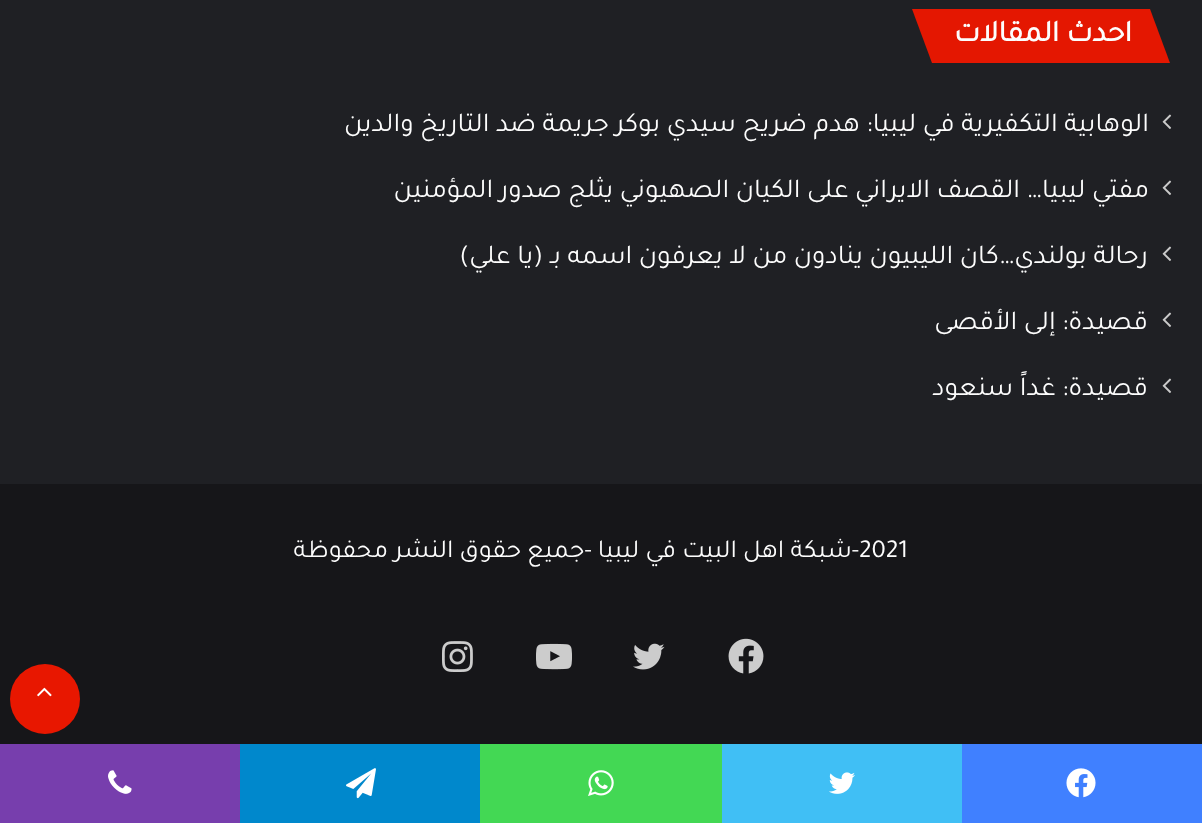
<svg xmlns="http://www.w3.org/2000/svg" width="1202" height="823" viewBox="0 0 1202 823">
  <rect width="100%" height="100%" fill="rgb(31,32,36)"/>
  <path d="M912 9H1150L1170 63H932Z" fill="rgb(228,23,1)"/>
  <text x="1132" y="41" font-family="Tajawal" font-size="30" font-weight="bold" direction="rtl" fill="rgb(253,253,253)">احدث المقالات</text>
  <image x="1162" y="114" width="10" height="15" href="pic1.png"/>
  <text x="1149" y="131" font-family="Tajawal" font-size="27.3" direction="rtl" fill="rgb(253,253,253)">الوهابية التكفيرية في ليبيا: هدم ضريح سيدي بوكر جريمة ضد التاريخ والدين</text>
  <image x="1162" y="180" width="10" height="15" href="pic1.png"/>
  <text x="1149" y="197" font-family="Tajawal" font-size="27.3" direction="rtl" fill="rgb(253,253,253)">مفتي ليبيا… القصف الايراني على الكيان الصهيوني يثلج صدور المؤمنين</text>
  <image x="1162" y="246" width="10" height="15" href="pic1.png"/>
  <text x="1148" y="263" font-family="Tajawal" font-size="27.3" direction="rtl" fill="rgb(253,253,253)">رحالة بولندي…كان الليبيون ينادون من لا يعرفون اسمه بـ (يا علي)</text>
  <image x="1162" y="312" width="10" height="15" href="pic1.png"/>
  <text x="1148" y="329" font-family="Tajawal" font-size="27.3" direction="rtl" fill="rgb(253,253,253)">قصيدة: إلى الأقصى</text>
  <image x="1162" y="378" width="10" height="15" href="pic1.png"/>
  <text x="1148" y="395" font-family="Tajawal" font-size="27.3" direction="rtl" fill="rgb(253,253,253)">قصيدة: غداً سنعود</text>
  <rect x="0" y="484" width="1202" height="260" fill="rgb(22,22,25)"/>
  <text x="859" y="557" font-family="Tajawal" font-size="26" fill="rgb(253,253,253)">2021</text>
  <text x="859" y="557" font-family="Tajawal" font-size="26" direction="rtl" fill="rgb(253,253,253)">-شبكة اهل البيت في ليبيا -جميع حقوق النشر محفوظة</text>
  <image x="728" y="638" width="36" height="36" href="pic2.png"/>
  <image x="633" y="643" width="32" height="27" href="pic3.png"/>
  <image x="536" y="643" width="36" height="27" href="pic4.png"/>
  <image x="442" y="641" width="31" height="31" href="pic5.png"/>
  <circle cx="45" cy="699" r="35" fill="rgb(232,23,0)"/>
  <image x="37" y="687" width="15" height="10" href="pic6.png"/>
  <rect x="962" y="744" width="240" height="79" fill="rgb(64,128,255)"/>
  <image x="1066" y="768" width="30" height="30" href="pic7.png"/>
  <rect x="722" y="744" width="240" height="79" fill="rgb(64,191,245)"/>
  <image x="829" y="772" width="26" height="22" href="pic8.png"/>
  <rect x="480" y="744" width="242" height="79" fill="rgb(67,216,84)"/>
  <image x="588" y="770" width="26" height="26" href="pic9.png"/>
  <rect x="240" y="744" width="240" height="79" fill="rgb(0,136,204)"/>
  <image x="346" y="768" width="30" height="31" href="pic10.png"/>
  <rect x="0" y="744" width="240" height="79" fill="rgb(119,62,173)"/>
  <image x="108" y="770" width="24" height="24" href="pic11.png"/>
</svg>
